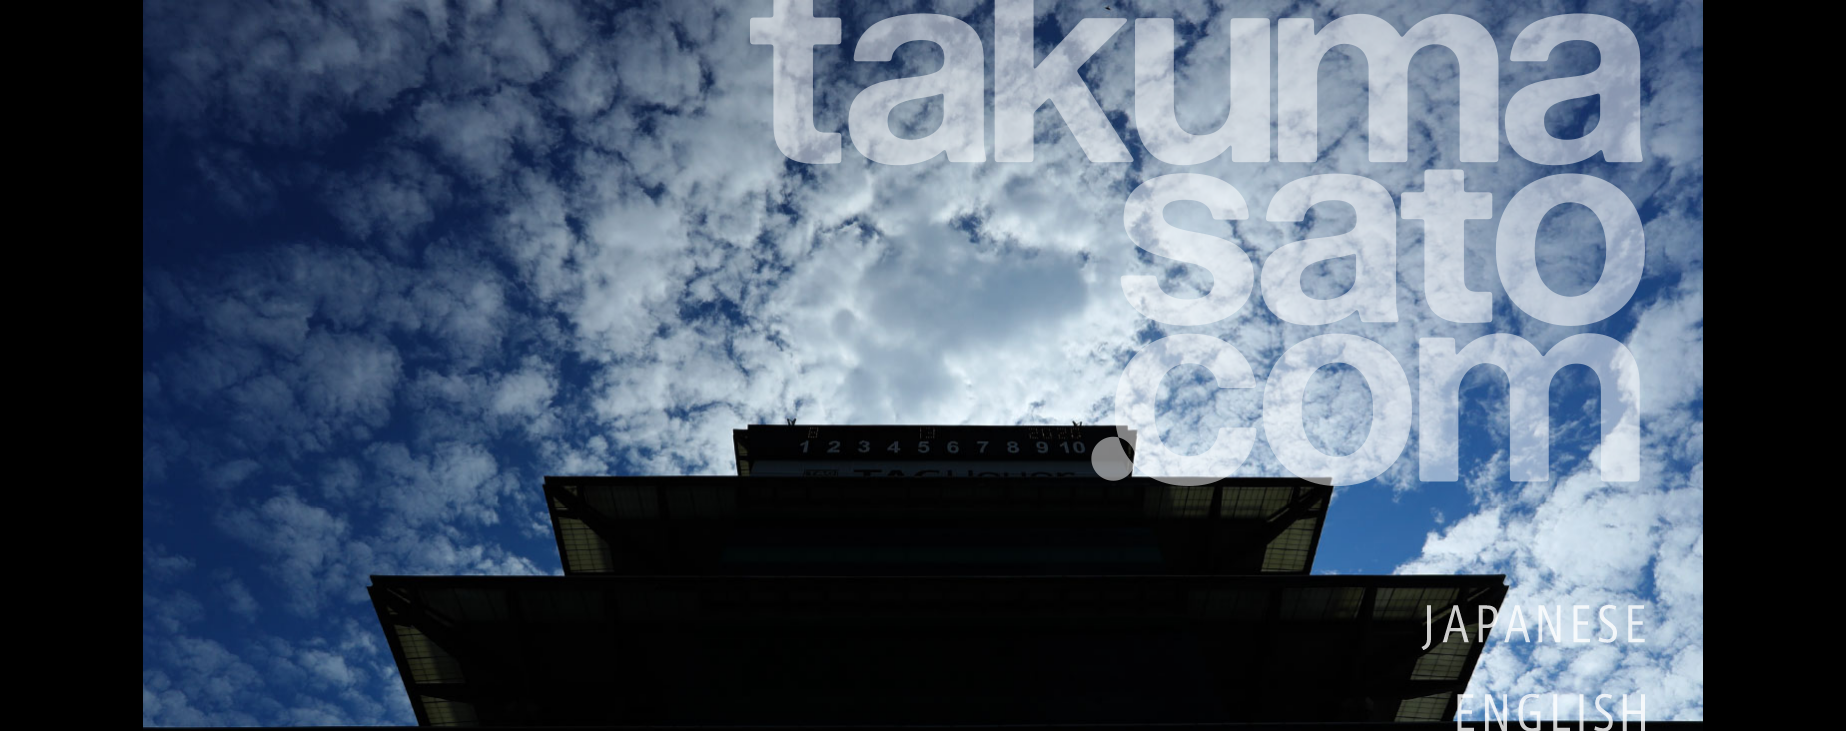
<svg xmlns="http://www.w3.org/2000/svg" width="1846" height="731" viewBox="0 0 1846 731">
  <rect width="100%" height="100%" fill="rgb(0,0,0)"/>
  <image x="143" y="0" width="1560" height="731" href="pic1.png"/>
  <image x="750" y="0" width="895" height="486" href="pic2.png"/>
  <image x="1421" y="604" width="224" height="46" href="pic3.png"/>
  <image x="1457" y="693" width="188" height="38" href="pic4.png"/>
</svg>
